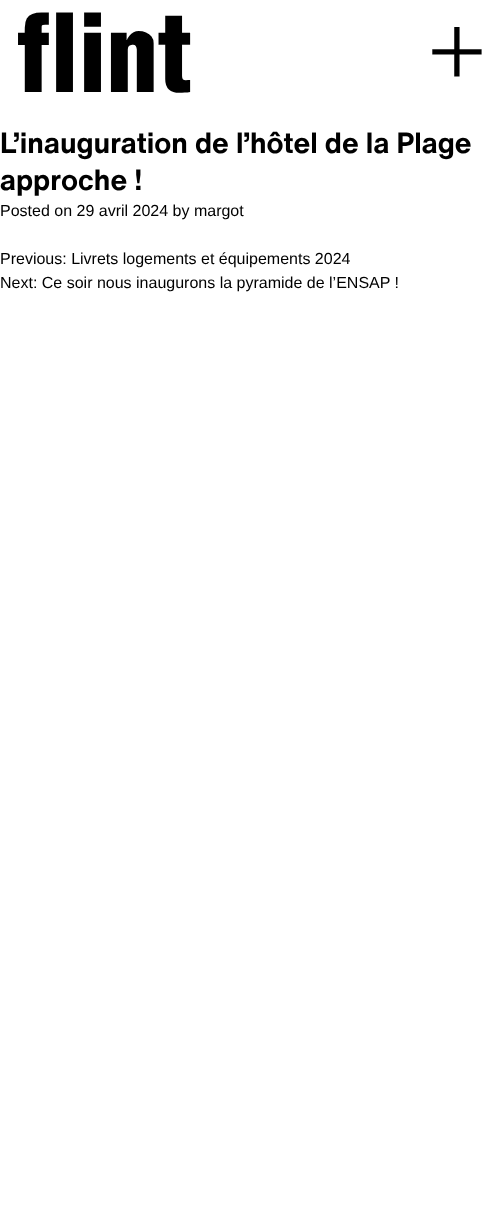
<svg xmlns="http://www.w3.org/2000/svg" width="503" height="1230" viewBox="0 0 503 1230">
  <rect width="100%" height="100%" fill="rgb(255,255,255)"/>
  <text x="16" y="92" font-family="Helvetica" font-size="106" font-weight="900" letter-spacing="-1.5" fill="rgb(0,0,0)">flint</text>
  <text x="427" y="87" font-family="Liberation Serif" font-size="106" fill="rgb(0,0,0)">+</text>
  <g font-family="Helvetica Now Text" font-size="28.75" font-weight="bold" fill="rgb(0,0,0)">
    <text>
      <tspan x="0" y="153">L’inauguration de l’hôtel de la Plage</tspan>
      <tspan x="0" y="190">approche !</tspan>
    </text>
  </g>
  <g font-family="Liberation Sans" font-size="16" fill="rgb(0,0,0)">
    <text x="0" y="216">Posted on 29 avril 2024 by margot</text>
    <text>
      <tspan x="0" y="264">Previous: Livrets logements et équipements 2024</tspan>
      <tspan x="0" y="288">Next: Ce soir nous inaugurons la pyramide de l’ENSAP !</tspan>
    </text>
  </g>
</svg>
